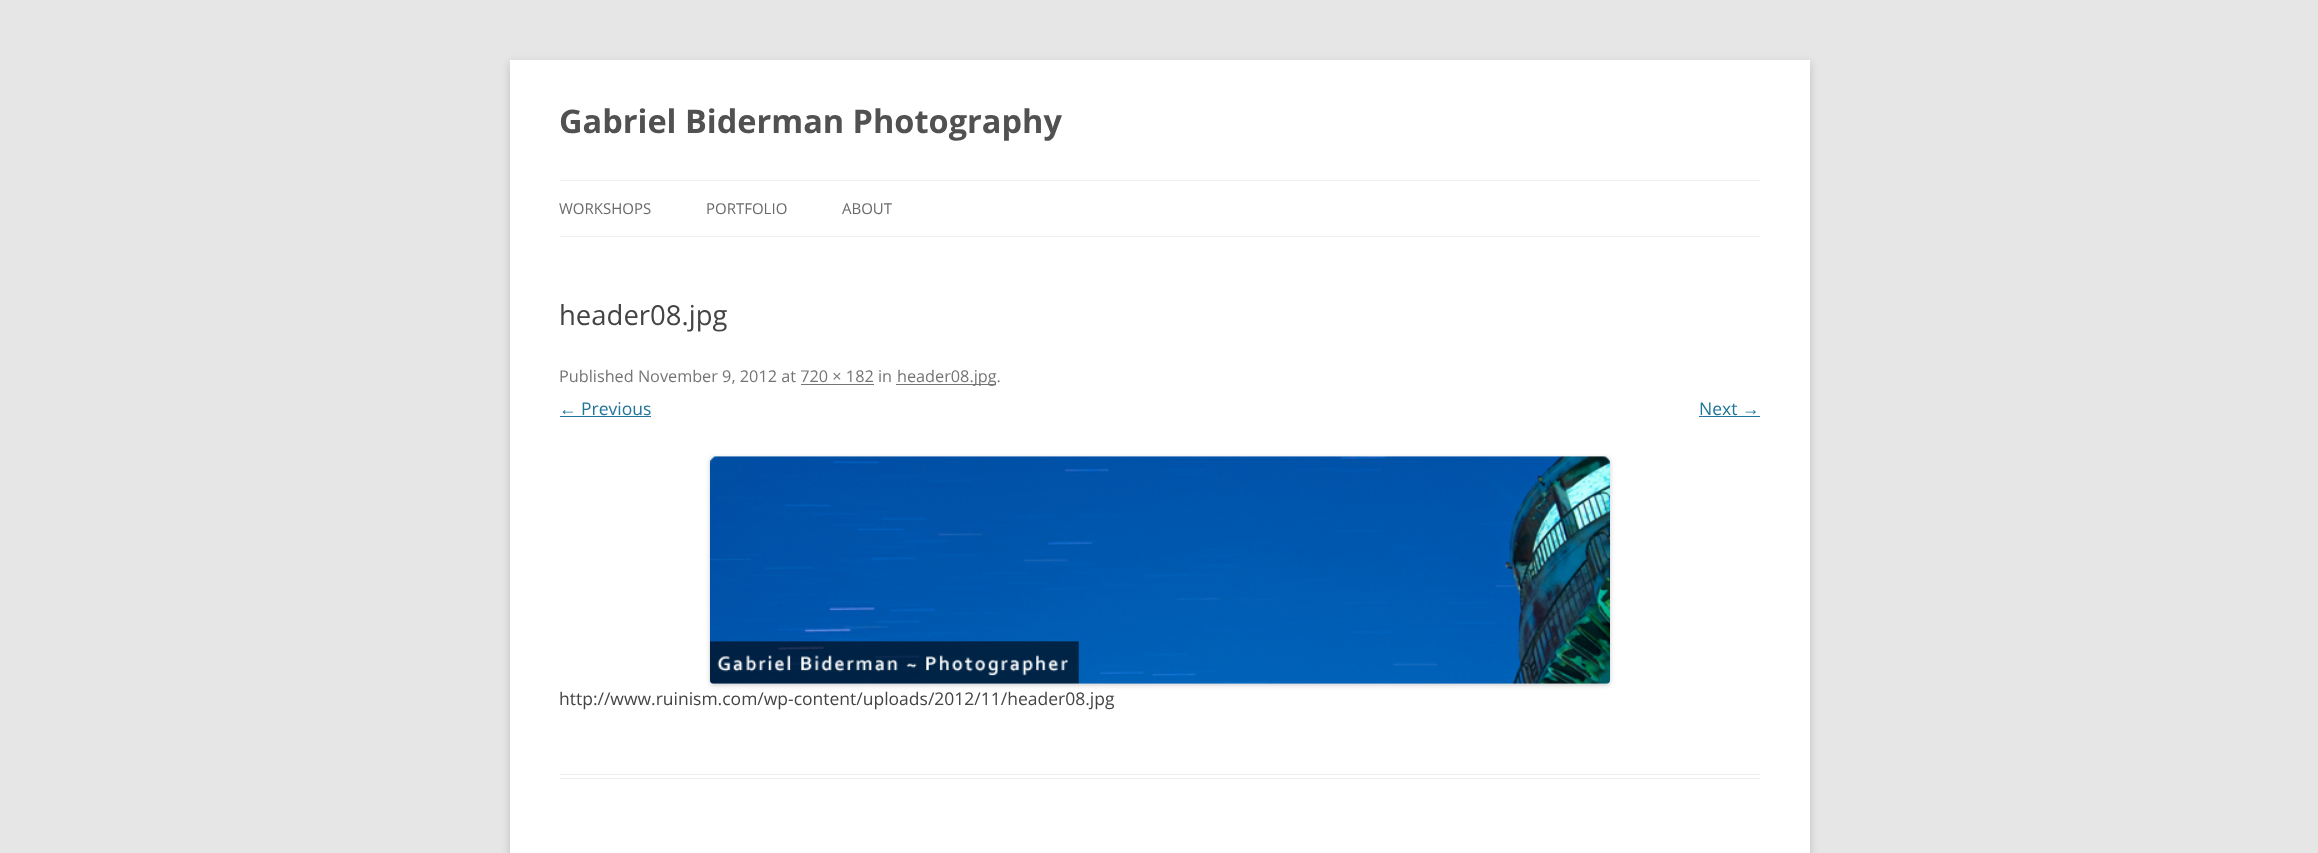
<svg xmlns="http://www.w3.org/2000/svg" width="2318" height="853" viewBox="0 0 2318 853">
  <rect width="100%" height="100%" fill="rgb(230,230,230)"/>
  <rect x="510" y="63" width="1300" height="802" fill="rgba(100,100,100,0.3)" filter="blur(4px)"/>
  <rect x="510" y="60" width="1300" height="793" fill="rgb(255,255,255)"/>
  <text x="559" y="133" font-family="Open Sans" font-size="32.5" font-weight="bold" fill="rgb(81,81,81)">Gabriel Biderman Photography</text>
  <rect x="560" y="180" width="1200" height="1" fill="rgb(237,237,237)"/>
  <rect x="560" y="236" width="1200" height="1" fill="rgb(237,237,237)"/>
  <g font-family="Open Sans" font-size="15" fill="rgb(106,106,106)">
    <text x="559" y="214">WORKSHOPS</text>
    <text x="706" y="214">PORTFOLIO</text>
    <text x="842" y="214">ABOUT</text>
  </g>
  <rect x="560" y="774" width="1200" height="1" fill="rgb(237,237,237)"/>
  <rect x="560" y="778" width="1200" height="1" fill="rgb(237,237,237)"/>
  <text x="559" y="325" font-family="Open Sans" font-size="27.5" fill="rgb(68,68,68)">header08.jpg</text>
  <text x="559" y="382" font-family="Open Sans" font-size="16.25" fill="rgb(117,117,117)">Published November 9, 2012 at 720 × 182 in</text>
  <rect x="896" y="384" width="100" height="1" fill="rgb(117,117,117)"/>
  <text x="897" y="382" font-family="Open Sans" font-size="16.25" fill="rgb(117,117,117)">header08.jpg.</text>
  <rect x="801" y="384" width="73" height="1" fill="rgb(117,117,117)"/>
  <text x="559" y="415" font-family="Liberation Sans" font-size="17.5" fill="rgb(33,117,155)">←</text>
  <rect x="560" y="416" width="91" height="1" fill="rgb(33,117,155)"/>
  <g font-family="Open Sans" font-size="17.5" fill="rgb(33,117,155)">
    <text x="581" y="415">Previous</text>
    <text x="1699" y="415">Next</text>
  </g>
  <text x="1742" y="415" font-family="Liberation Sans" font-size="17.5" fill="rgb(33,117,155)">→</text>
  <rect x="1699" y="416" width="61" height="1" fill="rgb(33,117,155)"/>
  <rect x="710" y="458" width="900" height="227" rx="4" fill="rgba(0,0,0,0.2)" filter="blur(2.5px)"/>
  <image x="710" y="456" width="900" height="228" href="pic1.png"/>
  <text x="559" y="705" font-family="Open Sans" font-size="17.5" fill="rgb(68,68,68)">http://www.ruinism.com/wp-content/uploads/2012/11/header08.jpg</text>
</svg>
